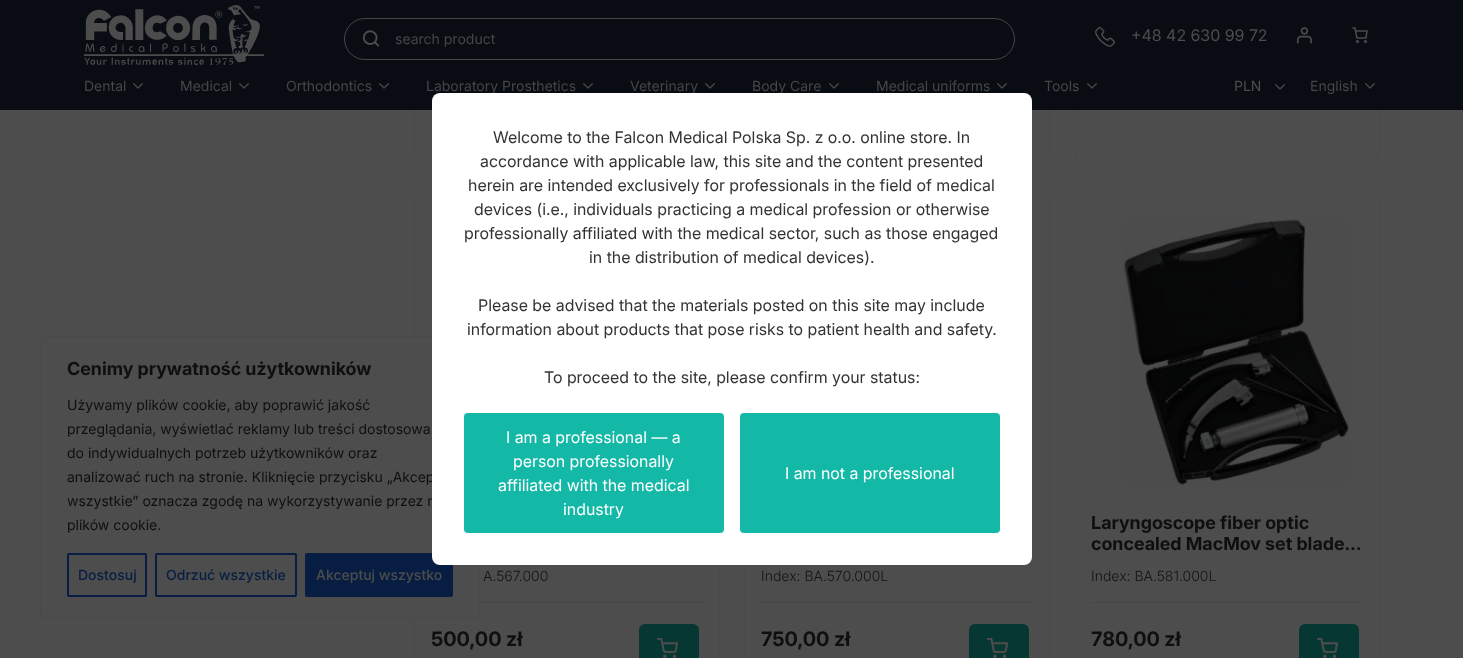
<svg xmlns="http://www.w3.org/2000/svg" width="1463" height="658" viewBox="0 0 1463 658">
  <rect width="100%" height="100%" fill="rgb(77,77,77)"/>
  <rect x="414.5" y="-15.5" width="305" height="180" rx="14.5" fill="none" stroke="rgb(72,74,75)"/>
  <rect x="744.5" y="-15.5" width="305" height="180" rx="14.5" fill="none" stroke="rgb(72,74,75)"/>
  <rect x="1074.5" y="-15.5" width="305" height="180" rx="14.5" fill="none" stroke="rgb(72,74,75)"/>
  <rect x="0" y="0" width="1463" height="110" fill="rgb(9,12,18)"/>
  <image x="84" y="5" width="180" height="60" href="pic1.png"/>
  <rect x="344.5" y="18.5" width="670" height="41" rx="20.5" fill="none" stroke="rgb(68,70,72)"/>
  <image x="362" y="30" width="18" height="17" href="pic2.png"/>
  <text x="395" y="44" font-family="'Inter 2'" font-size="14" fill="rgb(68,70,72)">search product</text>
  <image x="1095" y="27" width="20" height="20" href="pic3.png"/>
  <text x="1131" y="41" font-family="Inter" font-size="16" fill="rgb(77,77,77)">+48 42 630 99 72</text>
  <image x="1296" y="27" width="16" height="17" href="pic4.png"/>
  <image x="1352" y="27" width="16" height="16" href="pic5.png"/>
  <text x="84" y="91" font-family="'Inter 2'" font-size="14" fill="rgb(68,70,72)">Dental</text>
  <image x="133" y="83" width="10" height="6" href="pic6.png"/>
  <text x="180" y="91" font-family="'Inter 2'" font-size="14" fill="rgb(68,70,72)">Medical</text>
  <image x="239" y="83" width="10" height="6" href="pic6.png"/>
  <text x="286" y="91" font-family="'Inter 2'" font-size="14" fill="rgb(68,70,72)">Orthodontics</text>
  <image x="379" y="83" width="10" height="6" href="pic6.png"/>
  <text x="426" y="91" font-family="'Inter 2'" font-size="14" fill="rgb(68,70,72)">Laboratory Prosthetics</text>
  <image x="583" y="83" width="10" height="6" href="pic6.png"/>
  <text x="630" y="91" font-family="'Inter 2'" font-size="14" fill="rgb(68,70,72)">Veterinary</text>
  <image x="705" y="83" width="10" height="6" href="pic6.png"/>
  <text x="752" y="91" font-family="'Inter 2'" font-size="14" fill="rgb(68,70,72)">Body Care</text>
  <image x="829" y="83" width="10" height="6" href="pic6.png"/>
  <text x="876" y="91" font-family="'Inter 2'" font-size="14" fill="rgb(68,70,72)">Medical uniforms</text>
  <image x="997" y="83" width="10" height="6" href="pic6.png"/>
  <text x="1044" y="91" font-family="'Inter 2'" font-size="14" fill="rgb(68,70,72)">Tools</text>
  <image x="1087" y="83" width="10" height="6" href="pic6.png"/>
  <text x="1234" y="91" font-family="'Inter 2'" font-size="14" fill="rgb(77,77,77)">PLN</text>
  <image x="1275" y="84" width="10" height="6" href="pic6.png"/>
  <text x="1310" y="91" font-family="'Inter 2'" font-size="14" fill="rgb(68,70,72)">English</text>
  <image x="1365" y="83" width="10" height="6" href="pic6.png"/>
  <rect x="414.5" y="189.5" width="305" height="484" rx="14.5" fill="none" stroke="rgb(72,74,75)"/>
  <rect x="480" y="602" width="223" height="1" fill="rgb(68,70,72)"/>
  <text x="483" y="581" font-family="Inter" font-size="14" font-weight="300" fill="rgb(17,20,24)">A.567.000</text>
  <text x="431" y="646" font-family="Inter" font-size="20" font-weight="bold" fill="rgb(15,15,15)">500,00 zł</text>
  <rect x="639" y="624" width="60" height="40" rx="6" fill="rgb(6,55,50)"/>
  <image x="657" y="638" width="21" height="20" href="pic7.png"/>
  <rect x="744.5" y="189.5" width="305" height="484" rx="14.5" fill="none" stroke="rgb(72,74,75)"/>
  <rect x="761" y="602" width="272" height="1" fill="rgb(68,70,72)"/>
  <text x="761" y="581" font-family="Inter" font-size="14" font-weight="300" fill="rgb(17,20,24)">Index: BA.570.000L</text>
  <text x="761" y="646" font-family="Inter" font-size="20" font-weight="bold" fill="rgb(15,15,15)">750,00 zł</text>
  <rect x="969" y="624" width="60" height="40" rx="6" fill="rgb(6,55,50)"/>
  <image x="987" y="638" width="21" height="20" href="pic7.png"/>
  <rect x="1074.5" y="189.5" width="305" height="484" rx="14.5" fill="none" stroke="rgb(72,74,75)"/>
  <image x="1123" y="219" width="226" height="266" href="pic8.png"/>
  <g font-family="'Inter 2'" font-size="18" font-weight="bold" fill="rgb(15,15,15)">
    <text>
      <tspan x="1091" y="529">Laryngoscope fiber optic</tspan>
      <tspan x="1091" y="550">concealed MacMov set blade…</tspan>
    </text>
  </g>
  <rect x="1091" y="602" width="272" height="1" fill="rgb(68,70,72)"/>
  <text x="1091" y="581" font-family="Inter" font-size="14" font-weight="300" fill="rgb(17,20,24)">Index: BA.581.000L</text>
  <text x="1091" y="646" font-family="Inter" font-size="20" font-weight="bold" fill="rgb(15,15,15)">780,00 zł</text>
  <rect x="1299" y="624" width="60" height="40" rx="6" fill="rgb(6,55,50)"/>
  <image x="1317" y="638" width="21" height="20" href="pic7.png"/>
  <rect x="40.5" y="336.5" width="439" height="281" rx="5.5" fill="rgb(77,77,77)" stroke="rgb(73,73,73)"/>
  <text x="67" y="375" font-family="'Inter 2'" font-size="18" font-weight="bold" fill="rgb(15,15,15)">Cenimy prywatność użytkowników</text>
  <g font-family="'Inter 2'" font-size="14" fill="rgb(15,15,15)">
    <text>
      <tspan x="67" y="410">Używamy plików cookie, aby poprawić jakość</tspan>
      <tspan x="67" y="434">przeglądania, wyświetlać reklamy lub treści dostosowa</tspan>
      <tspan x="67" y="458">do indywidualnych potrzeb użytkowników oraz</tspan>
      <tspan x="67" y="482">analizować ruch na stronie. Kliknięcie przycisku „Akcep</tspan>
      <tspan x="67" y="506">wszystkie” oznacza zgodę na wykorzystywanie przez n</tspan>
      <tspan x="67" y="530">plików cookie.</tspan>
    </text>
  </g>
  <rect x="68" y="554" width="78" height="42" rx="1" fill="none" stroke="rgb(7,30,66)" stroke-width="2"/>
  <text x="78" y="580" font-family="Inter" font-size="14" font-weight="500" fill="rgb(7,30,66)">Dostosuj</text>
  <rect x="156" y="554" width="140" height="42" rx="1" fill="none" stroke="rgb(7,30,66)" stroke-width="2"/>
  <text x="166" y="580" font-family="Inter" font-size="14" font-weight="500" fill="rgb(7,30,66)">Odrzuć wszystkie</text>
  <rect x="306" y="554" width="146" height="42" rx="1" fill="rgb(7,30,66)" stroke="rgb(7,30,66)" stroke-width="2"/>
  <text x="316" y="580" font-family="Inter" font-size="14" font-weight="500" fill="rgb(77,77,77)">Akceptuj wszystko</text>
  <rect x="432" y="93" width="600" height="472" rx="8" fill="rgb(255,255,255)"/>
  <g font-family="Inter" font-size="16" fill="rgb(51,51,51)">
    <text x="493" y="143">Welcome to the Falcon Medical Polska Sp. z o.o. online store. In</text>
    <text x="480" y="167">accordance with applicable law, this site and the content presented</text>
    <text x="468" y="191">herein are intended exclusively for professionals in the field of medical</text>
    <text x="474" y="215">devices (i.e., individuals practicing a medical profession or otherwise</text>
    <text x="464" y="239">professionally affiliated with the medical sector, such as those engaged</text>
    <text x="589" y="263">in the distribution of medical devices).</text>
    <text x="478" y="311">Please be advised that the materials posted on this site may include</text>
    <text x="467" y="335">information about products that pose risks to patient health and safety.</text>
    <text x="544" y="383">To proceed to the site, please confirm your status:</text>
  </g>
  <rect x="464" y="413" width="260" height="120" rx="4" fill="rgb(20,184,166)"/>
  <g font-family="Inter" font-size="16" fill="rgb(255,255,255)">
    <text x="506" y="443">I am a professional — a</text>
    <text x="513" y="467">person professionally</text>
    <text x="498" y="491">affiliated with the medical</text>
    <text x="563" y="515">industry</text>
  </g>
  <rect x="740" y="413" width="260" height="120" rx="4" fill="rgb(20,184,166)"/>
  <text x="785" y="479" font-family="Inter" font-size="16" fill="rgb(255,255,255)">I am not a professional</text>
</svg>
